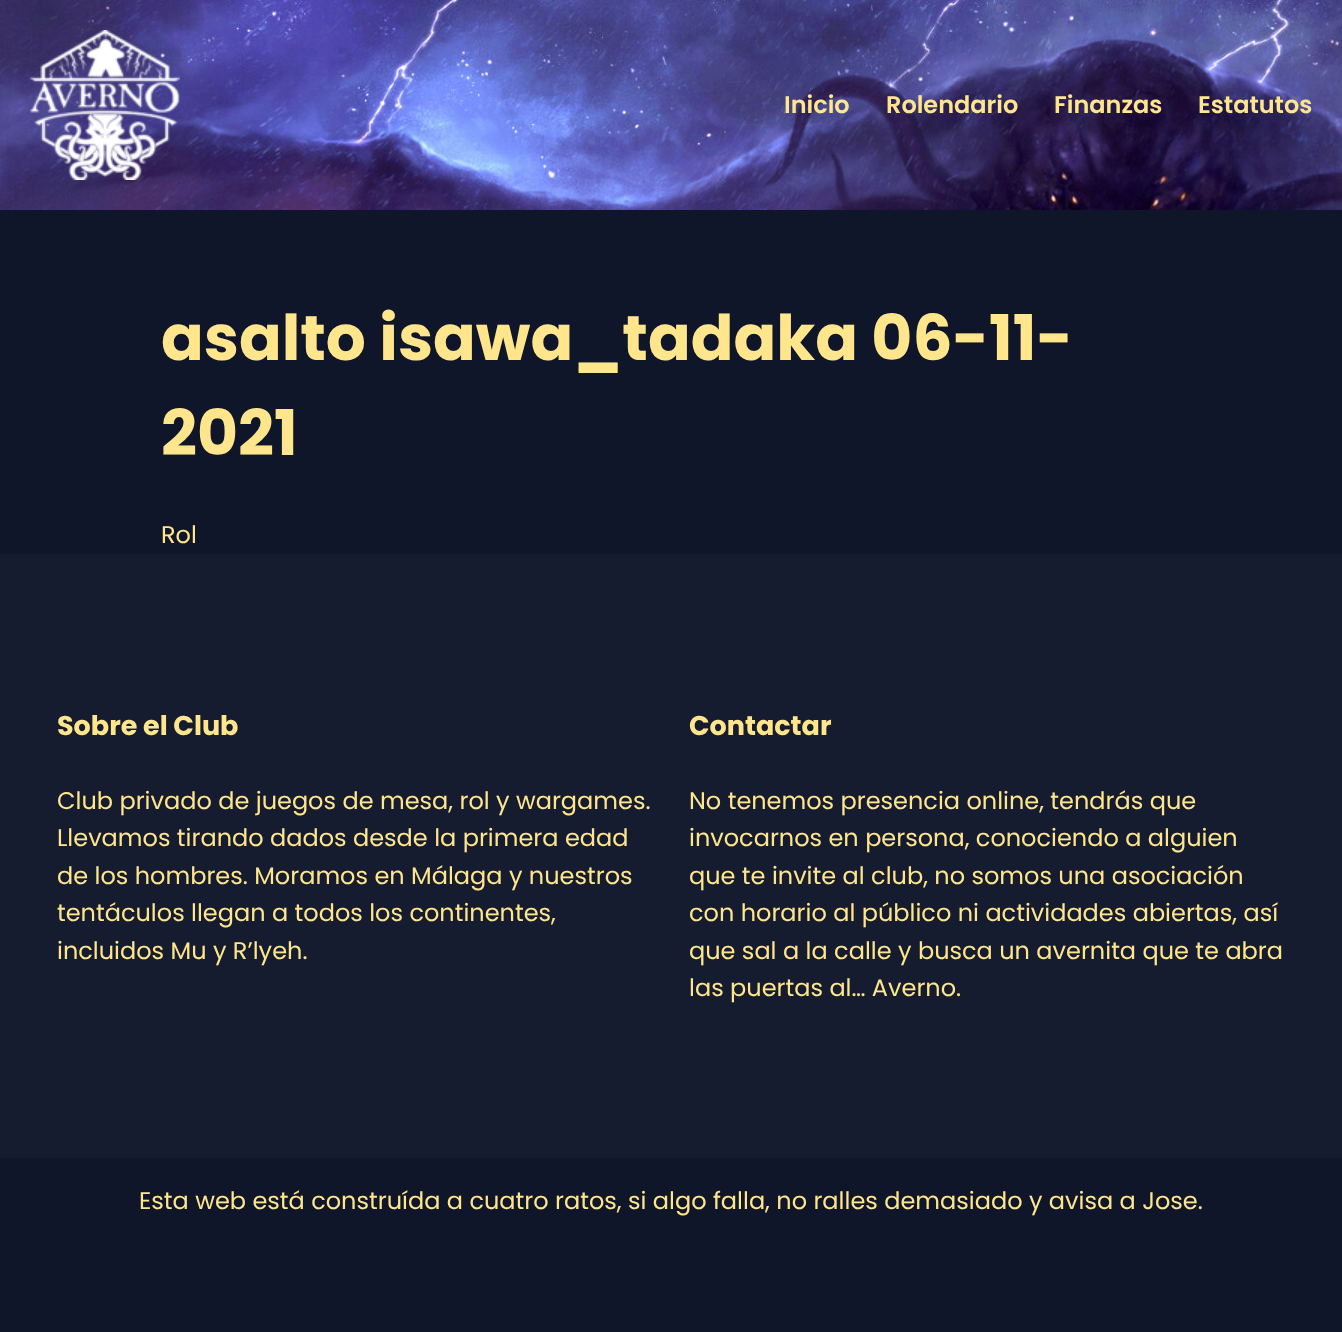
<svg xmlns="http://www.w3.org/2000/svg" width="1342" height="1332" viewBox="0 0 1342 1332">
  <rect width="100%" height="100%" fill="rgb(15,22,41)"/>
  <image x="0" y="0" width="1342" height="210" href="pic1.png"/>
  <image x="30" y="30" width="150" height="150" href="pic2.png"/>
  <g font-family="Poppins" font-size="24" font-weight="600" fill="rgb(255,230,141)">
    <text x="784" y="113">Inicio</text>
    <text x="886" y="113">Rolendario</text>
    <text x="1054" y="113">Finanzas</text>
    <text x="1198" y="113">Estatutos</text>
  </g>
  <g font-family="Poppins" font-size="63" font-weight="bold" fill="rgb(255,230,141)">
    <text>
      <tspan x="161" y="360">asalto isawa_tadaka 06-11-</tspan>
      <tspan x="161" y="455">2021</tspan>
    </text>
  </g>
  <text x="161" y="543" font-family="Poppins" font-size="24" fill="rgb(255,230,141)">Rol</text>
  <rect x="0" y="554" width="1342" height="604" fill="rgb(22,28,48)"/>
  <text x="57" y="735" font-family="Poppins" font-size="27" font-weight="bold" fill="rgb(255,230,141)">Sobre el Club</text>
  <g font-family="Poppins" font-size="24" fill="rgb(255,230,141)">
    <text>
      <tspan x="57" y="809">Club privado de juegos de mesa, rol y wargames.</tspan>
      <tspan x="57" y="846">Llevamos tirando dados desde la primera edad</tspan>
      <tspan x="57" y="884">de los hombres. Moramos en Málaga y nuestros</tspan>
      <tspan x="57" y="921">tentáculos llegan a todos los continentes,</tspan>
      <tspan x="57" y="959">incluidos Mu y R’lyeh.</tspan>
    </text>
  </g>
  <text x="689" y="735" font-family="Poppins" font-size="27" font-weight="bold" fill="rgb(255,230,141)">Contactar</text>
  <g font-family="Poppins" font-size="24" fill="rgb(255,230,141)">
    <text>
      <tspan x="689" y="809">No tenemos presencia online, tendrás que</tspan>
      <tspan x="689" y="846">invocarnos en persona, conociendo a alguien</tspan>
      <tspan x="689" y="884">que te invite al club, no somos una asociación</tspan>
      <tspan x="689" y="921">con horario al público ni actividades abiertas, así</tspan>
      <tspan x="689" y="959">que sal a la calle y busca un avernita que te abra</tspan>
      <tspan x="689" y="996">las puertas al… Averno.</tspan>
    </text>
    <text x="139" y="1209">Esta web está construída a cuatro ratos, si algo falla, no ralles demasiado y avisa a Jose.</text>
  </g>
</svg>
